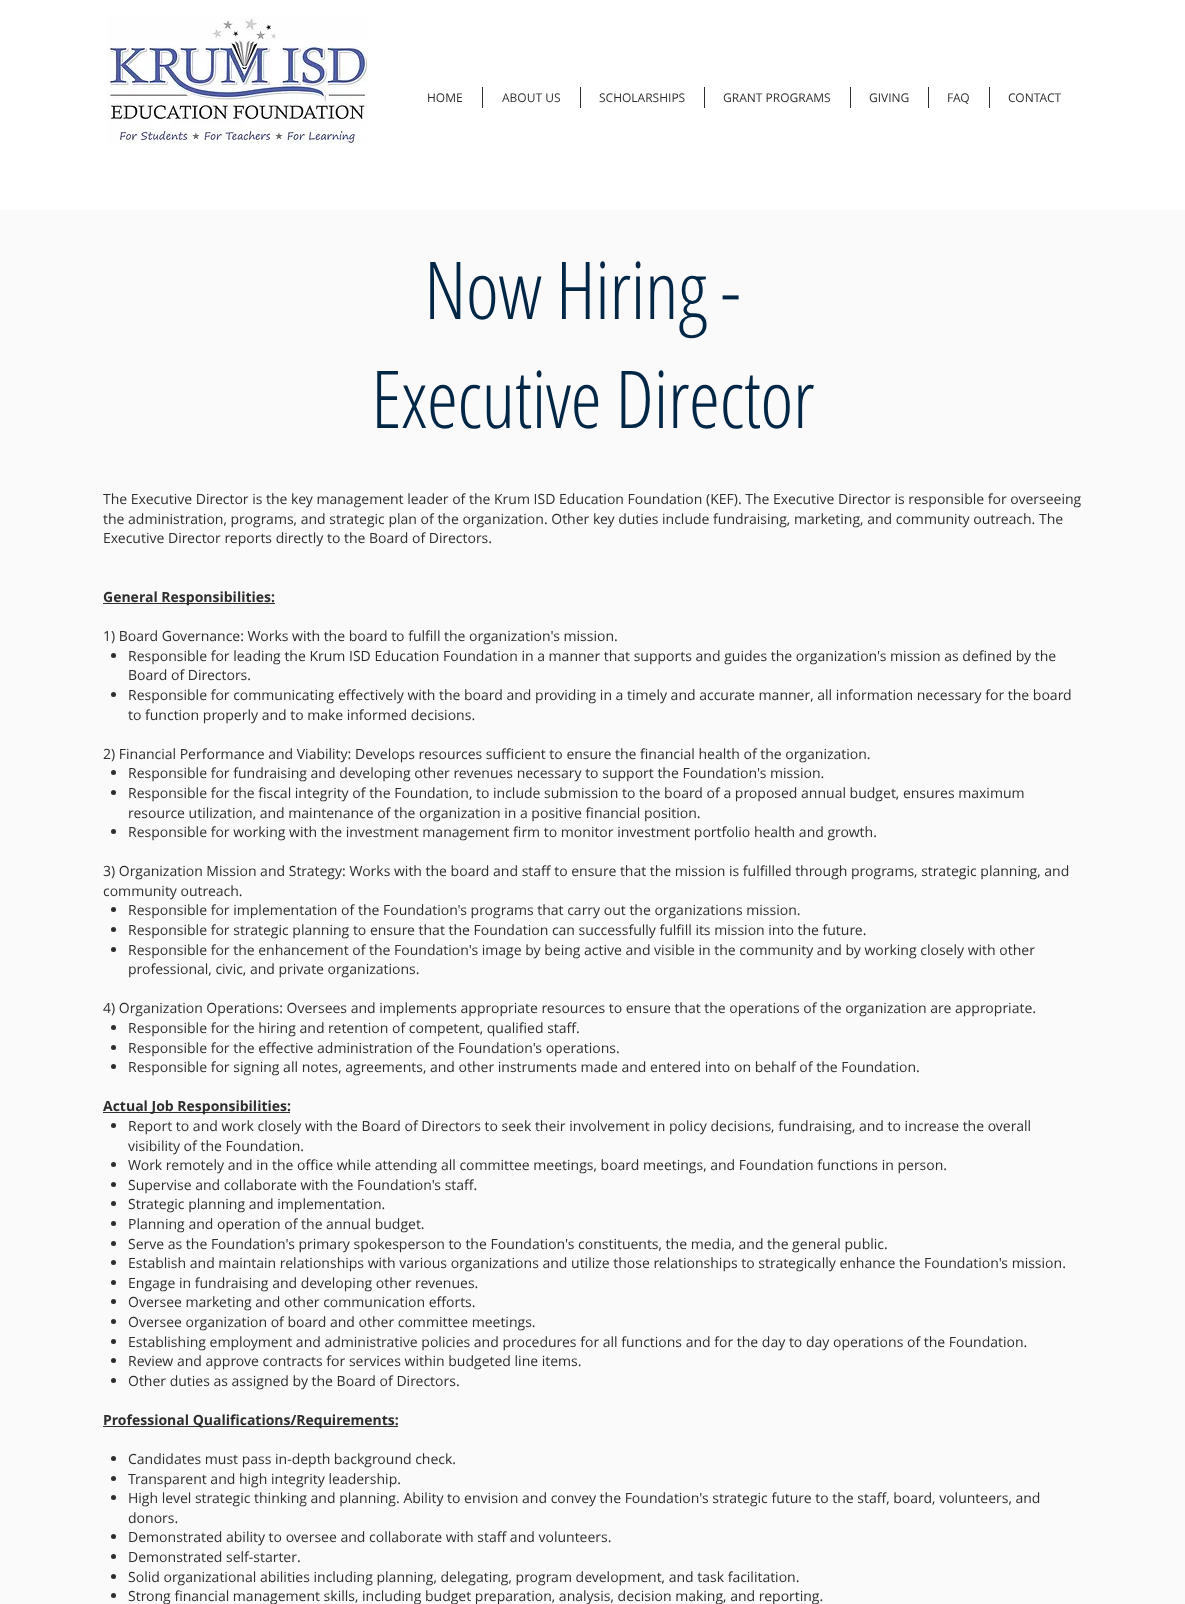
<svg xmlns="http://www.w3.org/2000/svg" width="1185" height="1604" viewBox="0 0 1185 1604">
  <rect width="100%" height="100%" fill="rgb(255,255,255)"/>
  <image x="107" y="16" width="261" height="128" href="pic1.png"/>
  <text x="427" y="102" font-family="Open Sans" font-size="12" fill="rgb(47,46,46)">HOME</text>
  <rect x="482" y="87" width="1" height="21" fill="rgb(47,46,46)"/>
  <text x="502" y="102" font-family="Open Sans" font-size="12" fill="rgb(47,46,46)">ABOUT US</text>
  <rect x="580" y="87" width="1" height="21" fill="rgb(47,46,46)"/>
  <text x="599" y="102" font-family="Open Sans" font-size="12" fill="rgb(47,46,46)">SCHOLARSHIPS</text>
  <rect x="704" y="87" width="1" height="21" fill="rgb(47,46,46)"/>
  <text x="723" y="102" font-family="Open Sans" font-size="12" fill="rgb(47,46,46)">GRANT PROGRAMS</text>
  <rect x="850" y="87" width="1" height="21" fill="rgb(47,46,46)"/>
  <text x="869" y="102" font-family="Open Sans" font-size="12" fill="rgb(47,46,46)">GIVING</text>
  <rect x="928" y="87" width="1" height="21" fill="rgb(47,46,46)"/>
  <text x="947" y="102" font-family="Open Sans" font-size="12" fill="rgb(47,46,46)">FAQ</text>
  <rect x="989" y="87" width="1" height="21" fill="rgb(47,46,46)"/>
  <text x="1008" y="102" font-family="Open Sans" font-size="12" fill="rgb(47,46,46)">CONTACT</text>
  <rect x="0" y="210" width="1185" height="1394" fill="rgb(250,250,250)"/>
  <g font-family="Open Sans Condensed" font-size="80" font-weight="300" letter-spacing="-0.75" fill="rgb(1,38,70)">
    <text x="424" y="319">Now Hiring -</text>
    <text x="371" y="428">Executive Director</text>
  </g>
  <g font-family="Open Sans" font-size="14" fill="rgb(47,46,46)">
    <text>
      <tspan x="103" y="504">The Executive Director is the key management leader of the Krum ISD Education Foundation (KEF). The Executive Director is responsible for overseeing</tspan>
      <tspan x="103" y="524">the administration, programs, and strategic plan of the organization. Other key duties include fundraising, marketing, and community outreach. The</tspan>
      <tspan x="103" y="543">Executive Director reports directly to the Board of Directors.</tspan>
    </text>
  </g>
  <rect x="103" y="603" width="172" height="1" fill="rgb(47,46,46)"/>
  <text x="103" y="602" font-family="Open Sans" font-size="14" font-weight="bold" fill="rgb(47,46,46)">General Responsibilities:</text>
  <text x="103" y="641" font-family="Open Sans" font-size="14" fill="rgb(47,46,46)">1) Board Governance: Works with the board to fulfill the organization's mission.</text>
  <circle cx="113.5" cy="655.5" r="2.5" fill="rgb(47,46,46)"/>
  <g font-family="Open Sans" font-size="14" fill="rgb(47,46,46)">
    <text>
      <tspan x="128" y="661">Responsible for leading the Krum ISD Education Foundation in a manner that supports and guides the organization's mission as defined by the</tspan>
      <tspan x="128" y="680">Board of Directors.</tspan>
    </text>
  </g>
  <circle cx="113.5" cy="694.5" r="2.5" fill="rgb(47,46,46)"/>
  <g font-family="Open Sans" font-size="14" fill="rgb(47,46,46)">
    <text>
      <tspan x="128" y="700">Responsible for communicating effectively with the board and providing in a timely and accurate manner, all information necessary for the board</tspan>
      <tspan x="128" y="720">to function properly and to make informed decisions.</tspan>
    </text>
    <text x="103" y="759">2) Financial Performance and Viability: Develops resources sufficient to ensure the financial health of the organization.</text>
  </g>
  <circle cx="113.5" cy="772.5" r="2.5" fill="rgb(47,46,46)"/>
  <text x="128" y="778" font-family="Open Sans" font-size="14" fill="rgb(47,46,46)">Responsible for fundraising and developing other revenues necessary to support the Foundation's mission.</text>
  <circle cx="113.5" cy="792.5" r="2.5" fill="rgb(47,46,46)"/>
  <g font-family="Open Sans" font-size="14" fill="rgb(47,46,46)">
    <text>
      <tspan x="128" y="798">Responsible for the fiscal integrity of the Foundation, to include submission to the board of a proposed annual budget, ensures maximum</tspan>
      <tspan x="128" y="818">resource utilization, and maintenance of the organization in a positive financial position.</tspan>
    </text>
  </g>
  <circle cx="113.5" cy="831.5" r="2.5" fill="rgb(47,46,46)"/>
  <g font-family="Open Sans" font-size="14" fill="rgb(47,46,46)">
    <text x="128" y="837">Responsible for working with the investment management firm to monitor investment portfolio health and growth.</text>
    <text>
      <tspan x="103" y="876">3) Organization Mission and Strategy: Works with the board and staff to ensure that the mission is fulfilled through programs, strategic planning, and</tspan>
      <tspan x="103" y="896">community outreach.</tspan>
    </text>
  </g>
  <circle cx="113.5" cy="909.5" r="2.5" fill="rgb(47,46,46)"/>
  <text x="128" y="915" font-family="Open Sans" font-size="14" fill="rgb(47,46,46)">Responsible for implementation of the Foundation's programs that carry out the organizations mission.</text>
  <circle cx="113.5" cy="929.5" r="2.5" fill="rgb(47,46,46)"/>
  <text x="128" y="935" font-family="Open Sans" font-size="14" fill="rgb(47,46,46)">Responsible for strategic planning to ensure that the Foundation can successfully fulfill its mission into the future.</text>
  <circle cx="113.5" cy="949.5" r="2.5" fill="rgb(47,46,46)"/>
  <g font-family="Open Sans" font-size="14" fill="rgb(47,46,46)">
    <text>
      <tspan x="128" y="955">Responsible for the enhancement of the Foundation's image by being active and visible in the community and by working closely with other</tspan>
      <tspan x="128" y="974">professional, civic, and private organizations.</tspan>
    </text>
    <text x="103" y="1013">4) Organization Operations: Oversees and implements appropriate resources to ensure that the operations of the organization are appropriate.</text>
  </g>
  <circle cx="113.5" cy="1027.5" r="2.5" fill="rgb(47,46,46)"/>
  <text x="128" y="1033" font-family="Open Sans" font-size="14" fill="rgb(47,46,46)">Responsible for the hiring and retention of competent, qualified staff.</text>
  <circle cx="113.5" cy="1047.5" r="2.5" fill="rgb(47,46,46)"/>
  <text x="128" y="1053" font-family="Open Sans" font-size="14" fill="rgb(47,46,46)">Responsible for the effective administration of the Foundation's operations.</text>
  <circle cx="113.5" cy="1066.5" r="2.5" fill="rgb(47,46,46)"/>
  <text x="128" y="1072" font-family="Open Sans" font-size="14" fill="rgb(47,46,46)">Responsible for signing all notes, agreements, and other instruments made and entered into on behalf of the Foundation.</text>
  <rect x="103" y="1112" width="187" height="1" fill="rgb(47,46,46)"/>
  <text x="103" y="1111" font-family="Open Sans" font-size="14" font-weight="bold" fill="rgb(47,46,46)">Actual Job Responsibilities:</text>
  <circle cx="113.5" cy="1125.5" r="2.5" fill="rgb(47,46,46)"/>
  <g font-family="Open Sans" font-size="14" fill="rgb(47,46,46)">
    <text>
      <tspan x="128" y="1131">Report to and work closely with the Board of Directors to seek their involvement in policy decisions, fundraising, and to increase the overall</tspan>
      <tspan x="128" y="1151">visibility of the Foundation.</tspan>
    </text>
  </g>
  <circle cx="113.5" cy="1164.5" r="2.5" fill="rgb(47,46,46)"/>
  <text x="128" y="1170" font-family="Open Sans" font-size="14" fill="rgb(47,46,46)">Work remotely and in the office while attending all committee meetings, board meetings, and Foundation functions in person.</text>
  <circle cx="113.5" cy="1184.5" r="2.5" fill="rgb(47,46,46)"/>
  <text x="128" y="1190" font-family="Open Sans" font-size="14" fill="rgb(47,46,46)">Supervise and collaborate with the Foundation's staff.</text>
  <circle cx="113.5" cy="1203.5" r="2.5" fill="rgb(47,46,46)"/>
  <text x="128" y="1209" font-family="Open Sans" font-size="14" fill="rgb(47,46,46)">Strategic planning and implementation.</text>
  <circle cx="113.5" cy="1223.5" r="2.5" fill="rgb(47,46,46)"/>
  <text x="128" y="1229" font-family="Open Sans" font-size="14" fill="rgb(47,46,46)">Planning and operation of the annual budget.</text>
  <circle cx="113.5" cy="1243.5" r="2.5" fill="rgb(47,46,46)"/>
  <text x="128" y="1249" font-family="Open Sans" font-size="14" fill="rgb(47,46,46)">Serve as the Foundation's primary spokesperson to the Foundation's constituents, the media, and the general public.</text>
  <circle cx="113.5" cy="1262.5" r="2.5" fill="rgb(47,46,46)"/>
  <text x="128" y="1268" font-family="Open Sans" font-size="14" fill="rgb(47,46,46)">Establish and maintain relationships with various organizations and utilize those relationships to strategically enhance the Foundation's mission.</text>
  <circle cx="113.5" cy="1282.5" r="2.5" fill="rgb(47,46,46)"/>
  <text x="128" y="1288" font-family="Open Sans" font-size="14" fill="rgb(47,46,46)">Engage in fundraising and developing other revenues.</text>
  <circle cx="113.5" cy="1301.5" r="2.5" fill="rgb(47,46,46)"/>
  <text x="128" y="1307" font-family="Open Sans" font-size="14" fill="rgb(47,46,46)">Oversee marketing and other communication efforts.</text>
  <circle cx="113.5" cy="1321.5" r="2.5" fill="rgb(47,46,46)"/>
  <text x="128" y="1327" font-family="Open Sans" font-size="14" fill="rgb(47,46,46)">Oversee organization of board and other committee meetings.</text>
  <circle cx="113.5" cy="1341.5" r="2.5" fill="rgb(47,46,46)"/>
  <text x="128" y="1347" font-family="Open Sans" font-size="14" fill="rgb(47,46,46)">Establishing employment and administrative policies and procedures for all functions and for the day to day operations of the Foundation.</text>
  <circle cx="113.5" cy="1360.5" r="2.5" fill="rgb(47,46,46)"/>
  <text x="128" y="1366" font-family="Open Sans" font-size="14" fill="rgb(47,46,46)">Review and approve contracts for services within budgeted line items.</text>
  <circle cx="113.5" cy="1380.5" r="2.5" fill="rgb(47,46,46)"/>
  <text x="128" y="1386" font-family="Open Sans" font-size="14" fill="rgb(47,46,46)">Other duties as assigned by the Board of Directors.</text>
  <rect x="103" y="1426" width="295" height="1" fill="rgb(47,46,46)"/>
  <text x="103" y="1425" font-family="Open Sans" font-size="14" font-weight="bold" fill="rgb(47,46,46)">Professional Qualifications/Requirements:</text>
  <circle cx="113.5" cy="1458.5" r="2.5" fill="rgb(47,46,46)"/>
  <text x="128" y="1464" font-family="Open Sans" font-size="14" fill="rgb(47,46,46)">Candidates must pass in-depth background check.</text>
  <circle cx="113.5" cy="1478.5" r="2.5" fill="rgb(47,46,46)"/>
  <text x="128" y="1484" font-family="Open Sans" font-size="14" fill="rgb(47,46,46)">Transparent and high integrity leadership.</text>
  <circle cx="113.5" cy="1497.5" r="2.5" fill="rgb(47,46,46)"/>
  <g font-family="Open Sans" font-size="14" fill="rgb(47,46,46)">
    <text>
      <tspan x="128" y="1503">High level strategic thinking and planning. Ability to envision and convey the Foundation's strategic future to the staff, board, volunteers, and</tspan>
      <tspan x="128" y="1523">donors.</tspan>
    </text>
  </g>
  <circle cx="113.5" cy="1536.5" r="2.5" fill="rgb(47,46,46)"/>
  <text x="128" y="1542" font-family="Open Sans" font-size="14" fill="rgb(47,46,46)">Demonstrated ability to oversee and collaborate with staff and volunteers.</text>
  <circle cx="113.5" cy="1556.5" r="2.5" fill="rgb(47,46,46)"/>
  <text x="128" y="1562" font-family="Open Sans" font-size="14" fill="rgb(47,46,46)">Demonstrated self-starter.</text>
  <circle cx="113.5" cy="1576.5" r="2.5" fill="rgb(47,46,46)"/>
  <text x="128" y="1582" font-family="Open Sans" font-size="14" fill="rgb(47,46,46)">Solid organizational abilities including planning, delegating, program development, and task facilitation.</text>
  <circle cx="113.5" cy="1595.5" r="2.5" fill="rgb(47,46,46)"/>
  <text x="128" y="1601" font-family="Open Sans" font-size="14" fill="rgb(47,46,46)">Strong financial management skills, including budget preparation, analysis, decision making, and reporting.</text>
</svg>
